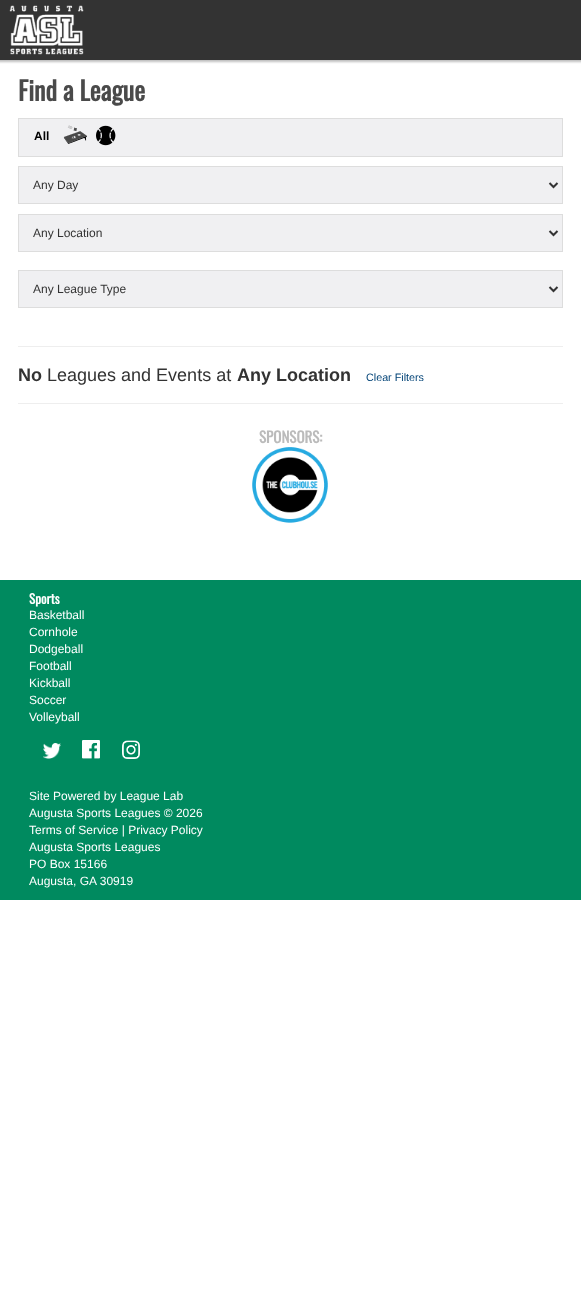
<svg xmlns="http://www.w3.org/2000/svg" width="581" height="1297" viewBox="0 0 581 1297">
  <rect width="100%" height="100%" fill="rgb(255,255,255)"/>
  <rect x="-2" y="-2" width="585" height="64" fill="rgba(0,0,0,0.25)" filter="blur(1px)"/>
  <rect x="0" y="0" width="581" height="60" fill="rgb(51,51,51)"/>
  <image x="9" y="5" width="75" height="50" href="pic1.png"/>
  <rect x="18" y="346" width="545" height="1" fill="rgb(238,238,238)"/>
  <text x="18" y="101" font-family="Oswald" font-size="26" font-weight="bold" fill="rgb(74,74,74)">Find a League</text>
  <rect x="18.5" y="118.5" width="544" height="38" fill="rgb(240,240,242)" stroke="rgb(221,221,221)"/>
  <text x="34" y="140" font-family="Liberation Sans" font-size="12" font-weight="bold" fill="rgb(0,0,0)">All</text>
  <image x="63" y="125" width="24" height="19" href="pic2.png"/>
  <image x="96" y="125" width="20" height="21" href="pic3.png"/>
  <rect x="18.5" y="166.5" width="544" height="37" fill="rgb(240,240,242)" stroke="rgb(221,221,221)"/>
  <path d="M549.5 183L553.5 187L557.5 183" fill="none" stroke="rgb(51,51,51)" stroke-width="2"/>
  <text x="33" y="189" font-family="Liberation Sans" font-size="12" fill="rgb(51,51,51)">Any Day</text>
  <rect x="18.5" y="214.5" width="544" height="37" fill="rgb(240,240,242)" stroke="rgb(221,221,221)"/>
  <path d="M549.5 231L553.5 235L557.5 231" fill="none" stroke="rgb(51,51,51)" stroke-width="2"/>
  <text x="33" y="237" font-family="Liberation Sans" font-size="12" fill="rgb(51,51,51)">Any Location</text>
  <rect x="18.5" y="270.5" width="544" height="37" fill="rgb(240,240,242)" stroke="rgb(221,221,221)"/>
  <path d="M549.5 287L553.5 291L557.5 287" fill="none" stroke="rgb(51,51,51)" stroke-width="2"/>
  <text x="33" y="293" font-family="Liberation Sans" font-size="12" fill="rgb(51,51,51)">Any League Type</text>
  <rect x="18" y="403" width="545" height="1" fill="rgb(238,238,238)"/>
  <text x="18" y="381" font-family="Liberation Sans" font-size="18" font-weight="bold" fill="rgb(51,51,51)">No</text>
  <text x="47" y="381" font-family="Liberation Sans" font-size="18" fill="rgb(51,51,51)">Leagues and Events at</text>
  <text x="237" y="381" font-family="Liberation Sans" font-size="18" font-weight="bold" fill="rgb(51,51,51)">Any Location</text>
  <text x="366" y="381" font-family="Liberation Sans" font-size="10.75" fill="rgb(0,66,118)">Clear Filters</text>
  <text x="259" y="443" font-family="Oswald" font-size="15" font-weight="bold" fill="rgb(187,187,187)">SPONSORS:</text>
  <image x="252" y="447" width="76" height="76" href="pic4.png"/>
  <rect x="0" y="580" width="581" height="320" fill="rgb(0,138,95)"/>
  <text x="29" y="604" font-family="Oswald" font-size="13" font-weight="bold" fill="rgb(255,255,255)">Sports</text>
  <g font-family="Liberation Sans" font-size="12" fill="rgb(255,255,255)">
    <text>
      <tspan x="29" y="619">Basketball</tspan>
      <tspan x="29" y="636">Cornhole</tspan>
      <tspan x="29" y="653">Dodgeball</tspan>
      <tspan x="29" y="670">Football</tspan>
      <tspan x="29" y="687">Kickball</tspan>
      <tspan x="29" y="704">Soccer</tspan>
      <tspan x="29" y="721">Volleyball</tspan>
    </text>
  </g>
  <image x="43" y="743" width="18" height="16" href="pic5.png"/>
  <image x="82" y="740" width="18" height="19" href="pic6.png"/>
  <image x="122" y="740" width="18" height="19" href="pic7.png"/>
  <g font-family="Liberation Sans" font-size="12" fill="rgb(255,255,255)">
    <text>
      <tspan x="29" y="800">Site Powered by League Lab</tspan>
      <tspan x="29" y="817">Augusta Sports Leagues © 2026</tspan>
      <tspan x="29" y="834">Terms of Service | Privacy Policy</tspan>
      <tspan x="29" y="851">Augusta Sports Leagues</tspan>
      <tspan x="29" y="868">PO Box 15166</tspan>
      <tspan x="29" y="885">Augusta, GA 30919</tspan>
    </text>
  </g>
</svg>
